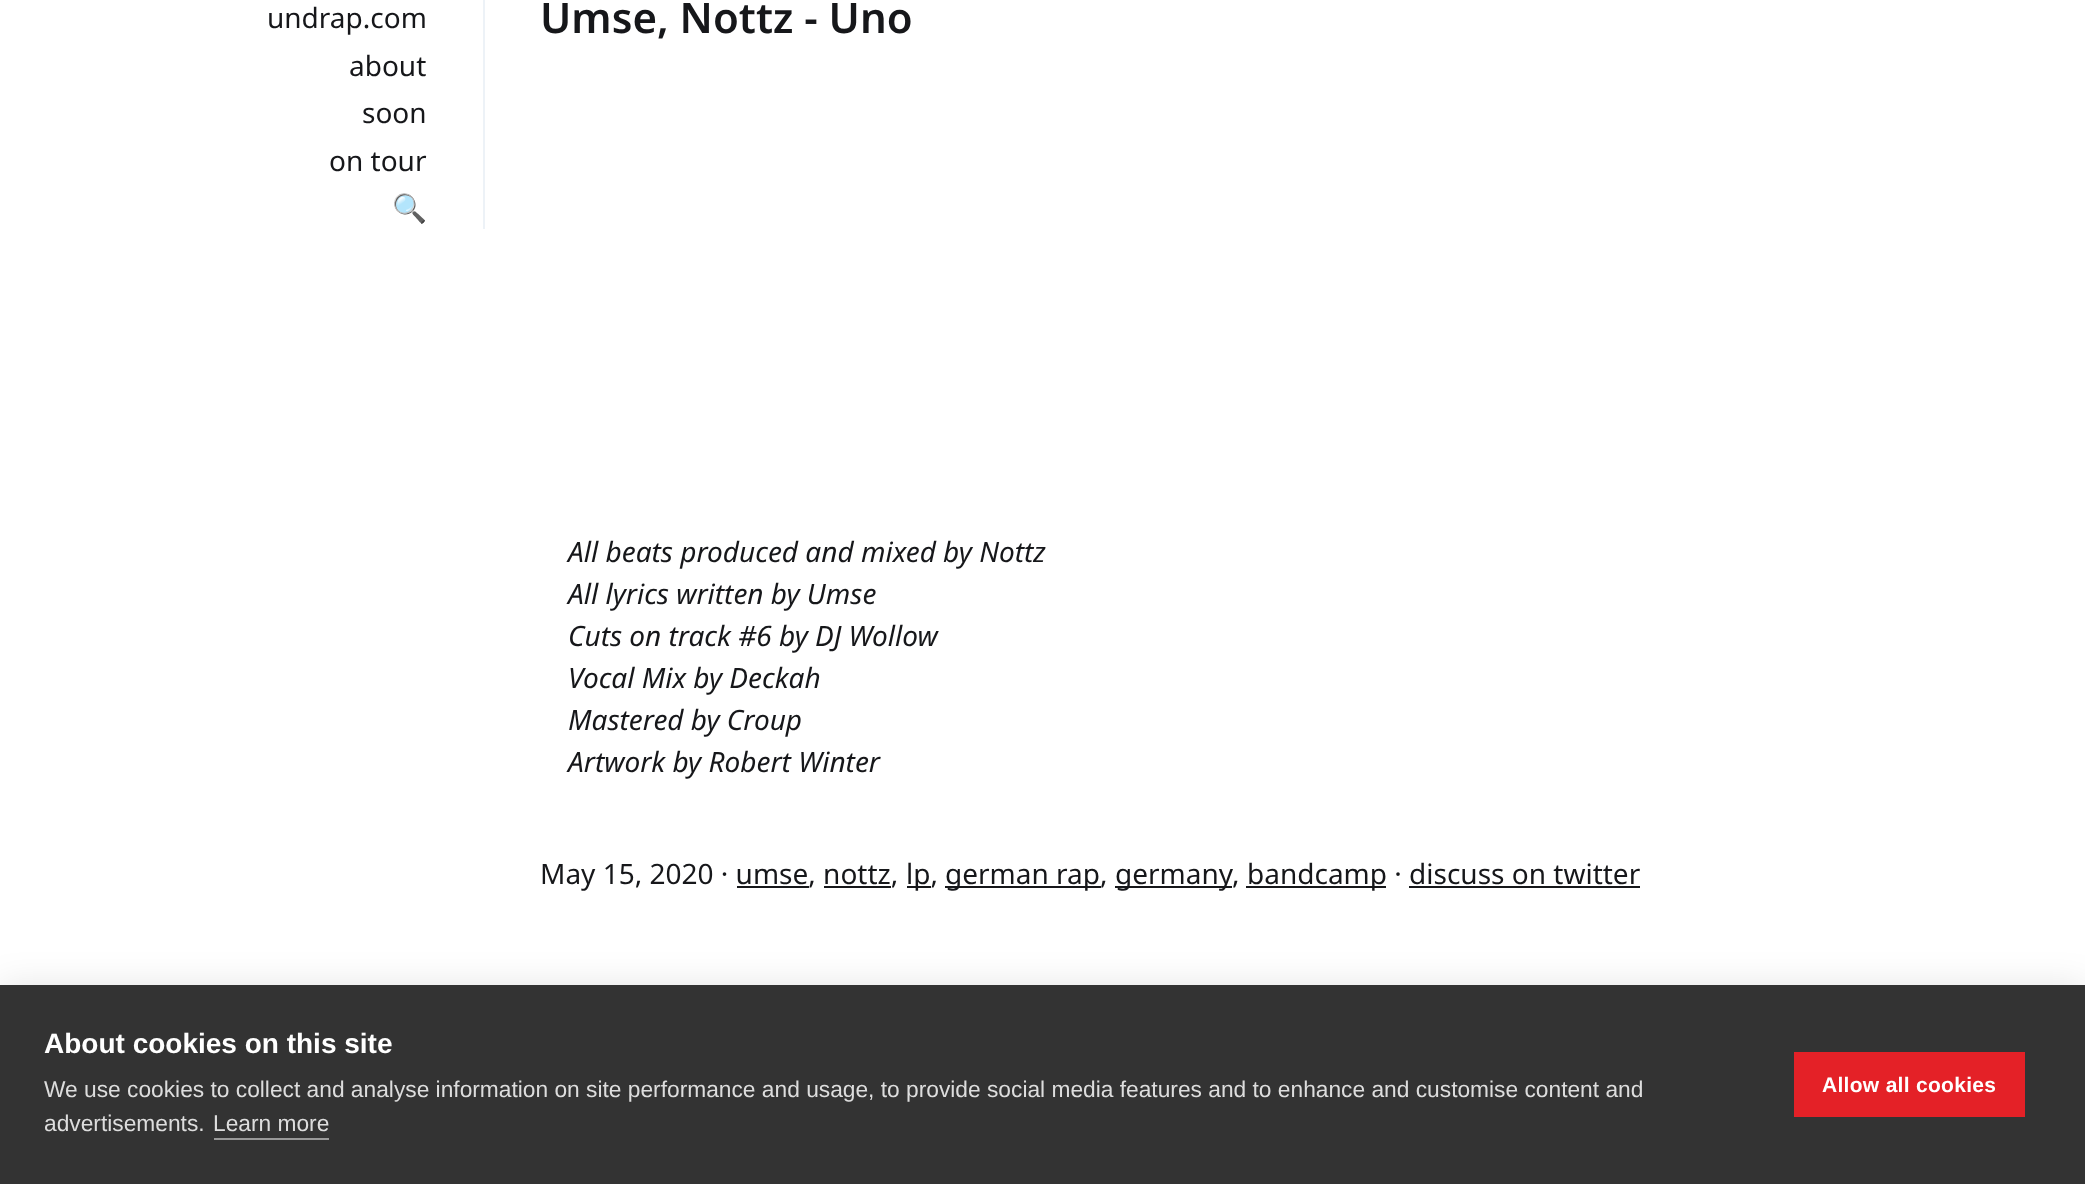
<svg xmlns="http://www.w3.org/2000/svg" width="2085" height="1184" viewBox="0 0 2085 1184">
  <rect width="100%" height="100%" fill="rgb(255,255,255)"/>
  <rect x="483" y="0" width="2" height="229" fill="rgb(237,242,247)"/>
  <g font-family="Noto Sans" font-size="28" fill="rgb(22,23,26)">
    <text x="267" y="28">undrap.com</text>
    <text x="349" y="76">about</text>
    <text x="362" y="123">soon</text>
    <text x="329" y="171">on tour</text>
  </g>
  <text x="392" y="218" font-family="Noto Color Emoji" font-size="28" fill="rgb(22,23,26)">🔍</text>
  <text x="540" y="33" font-family="Noto Sans" font-size="42" font-weight="600" fill="rgb(22,23,26)">Umse, Nottz - Uno</text>
  <g font-family="Noto Sans" font-size="28" font-style="italic" fill="rgb(22,23,26)">
    <text>
      <tspan x="568" y="562">All beats produced and mixed by Nottz</tspan>
      <tspan x="568" y="604">All lyrics written by Umse</tspan>
      <tspan x="568" y="646">Cuts on track #6 by DJ Wollow</tspan>
      <tspan x="568" y="688">Vocal Mix by Deckah</tspan>
      <tspan x="568" y="730">Mastered by Croup</tspan>
      <tspan x="568" y="772">Artwork by Robert Winter</tspan>
    </text>
  </g>
  <text x="540" y="884" font-family="Noto Sans" font-size="28" fill="rgb(22,23,26)">May 15, 2020 · umse, nottz,</text>
  <rect x="907" y="886" width="24" height="2" fill="rgb(22,23,26)"/>
  <text x="906" y="884" font-family="Noto Sans" font-size="28" fill="rgb(22,23,26)">lp,</text>
  <rect x="945" y="886" width="156" height="2" fill="rgb(22,23,26)"/>
  <text x="945" y="884" font-family="Noto Sans" font-size="28" fill="rgb(22,23,26)">german rap,</text>
  <rect x="1115" y="886" width="117" height="2" fill="rgb(22,23,26)"/>
  <g font-family="Noto Sans" font-size="28" fill="rgb(22,23,26)">
    <text x="1115" y="884">germany</text>
    <text x="1232" y="884">,</text>
  </g>
  <rect x="1246" y="886" width="140" height="2" fill="rgb(22,23,26)"/>
  <text x="1247" y="884" font-family="Noto Sans" font-size="28" fill="rgb(22,23,26)">bandcamp · discuss on twitter</text>
  <rect x="737" y="886" width="72" height="2" fill="rgb(22,23,26)"/>
  <rect x="824" y="886" width="67" height="2" fill="rgb(22,23,26)"/>
  <rect x="1409" y="886" width="231" height="2" fill="rgb(22,23,26)"/>
  <rect x="0" y="985" width="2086" height="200" fill="rgba(0,0,0,0.1)" filter="blur(17.5px)"/>
  <rect x="0" y="985" width="2085" height="199" fill="rgb(51,51,51)"/>
  <text x="44" y="1053" font-family="Liberation Sans" font-size="28" font-weight="bold" fill="rgb(255,255,255)">About cookies on this site</text>
  <g font-family="Liberation Sans" font-size="22.75" fill="rgb(221,221,221)">
    <text>
      <tspan x="44" y="1097">We use cookies to collect and analyse information on site performance and usage, to provide social media features and to enhance and customise content and</tspan>
      <tspan x="44" y="1131">advertisements.</tspan>
    </text>
    <text x="213" y="1131">Learn more</text>
  </g>
  <rect x="214" y="1138" width="115" height="2" fill="rgb(153,153,153)"/>
  <rect x="1794" y="1052" width="231" height="65" fill="rgb(228,33,39)"/>
  <text x="1822" y="1092" font-family="Liberation Sans" font-size="21" font-weight="bold" letter-spacing="0.3" fill="rgb(255,255,255)">Allow all cookies</text>
</svg>
